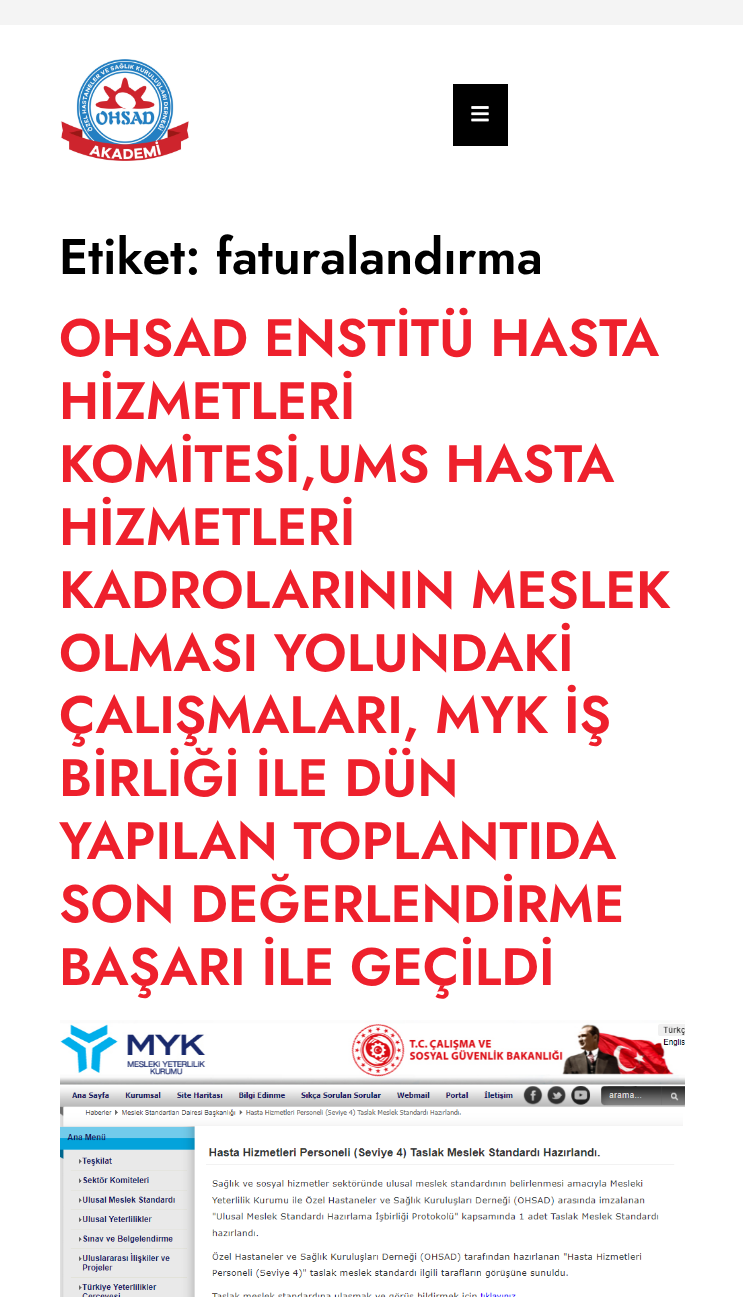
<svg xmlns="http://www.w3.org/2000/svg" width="743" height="1297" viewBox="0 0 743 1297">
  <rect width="100%" height="100%" fill="rgb(255,255,255)"/>
  <rect x="0" y="0" width="743" height="25" fill="rgb(244,244,244)"/>
  <image x="60" y="59" width="129" height="102" href="pic1.png"/>
  <rect x="453" y="84" width="55" height="62" fill="rgb(0,0,0)"/>
  <image x="471" y="106" width="18" height="16" href="pic2.png"/>
  <text x="59" y="274" font-family="Jost" font-size="50" font-weight="600" fill="rgb(0,0,0)">Etiket: faturalandırma</text>
  <g font-family="Jost" font-size="52.5" font-weight="600" fill="rgb(238,32,44)">
    <text>
      <tspan x="59" y="356">OHSAD ENSTİTÜ HASTA</tspan>
      <tspan x="59" y="419">HİZMETLERİ</tspan>
      <tspan x="59" y="482">KOMİTESİ,UMS HASTA</tspan>
      <tspan x="59" y="545">HİZMETLERİ</tspan>
      <tspan x="59" y="608">KADROLARININ MESLEK</tspan>
      <tspan x="59" y="671">OLMASI YOLUNDAKİ</tspan>
      <tspan x="59" y="733">ÇALIŞMALARI, MYK İŞ</tspan>
      <tspan x="59" y="796">BİRLİĞİ İLE DÜN</tspan>
      <tspan x="59" y="859">YAPILAN TOPLANTIDA</tspan>
      <tspan x="59" y="922">SON DEĞERLENDİRME</tspan>
      <tspan x="59" y="985">BAŞARI İLE GEÇİLDİ</tspan>
    </text>
  </g>
  <image x="60" y="1020" width="625" height="277" href="pic3.png"/>
</svg>
